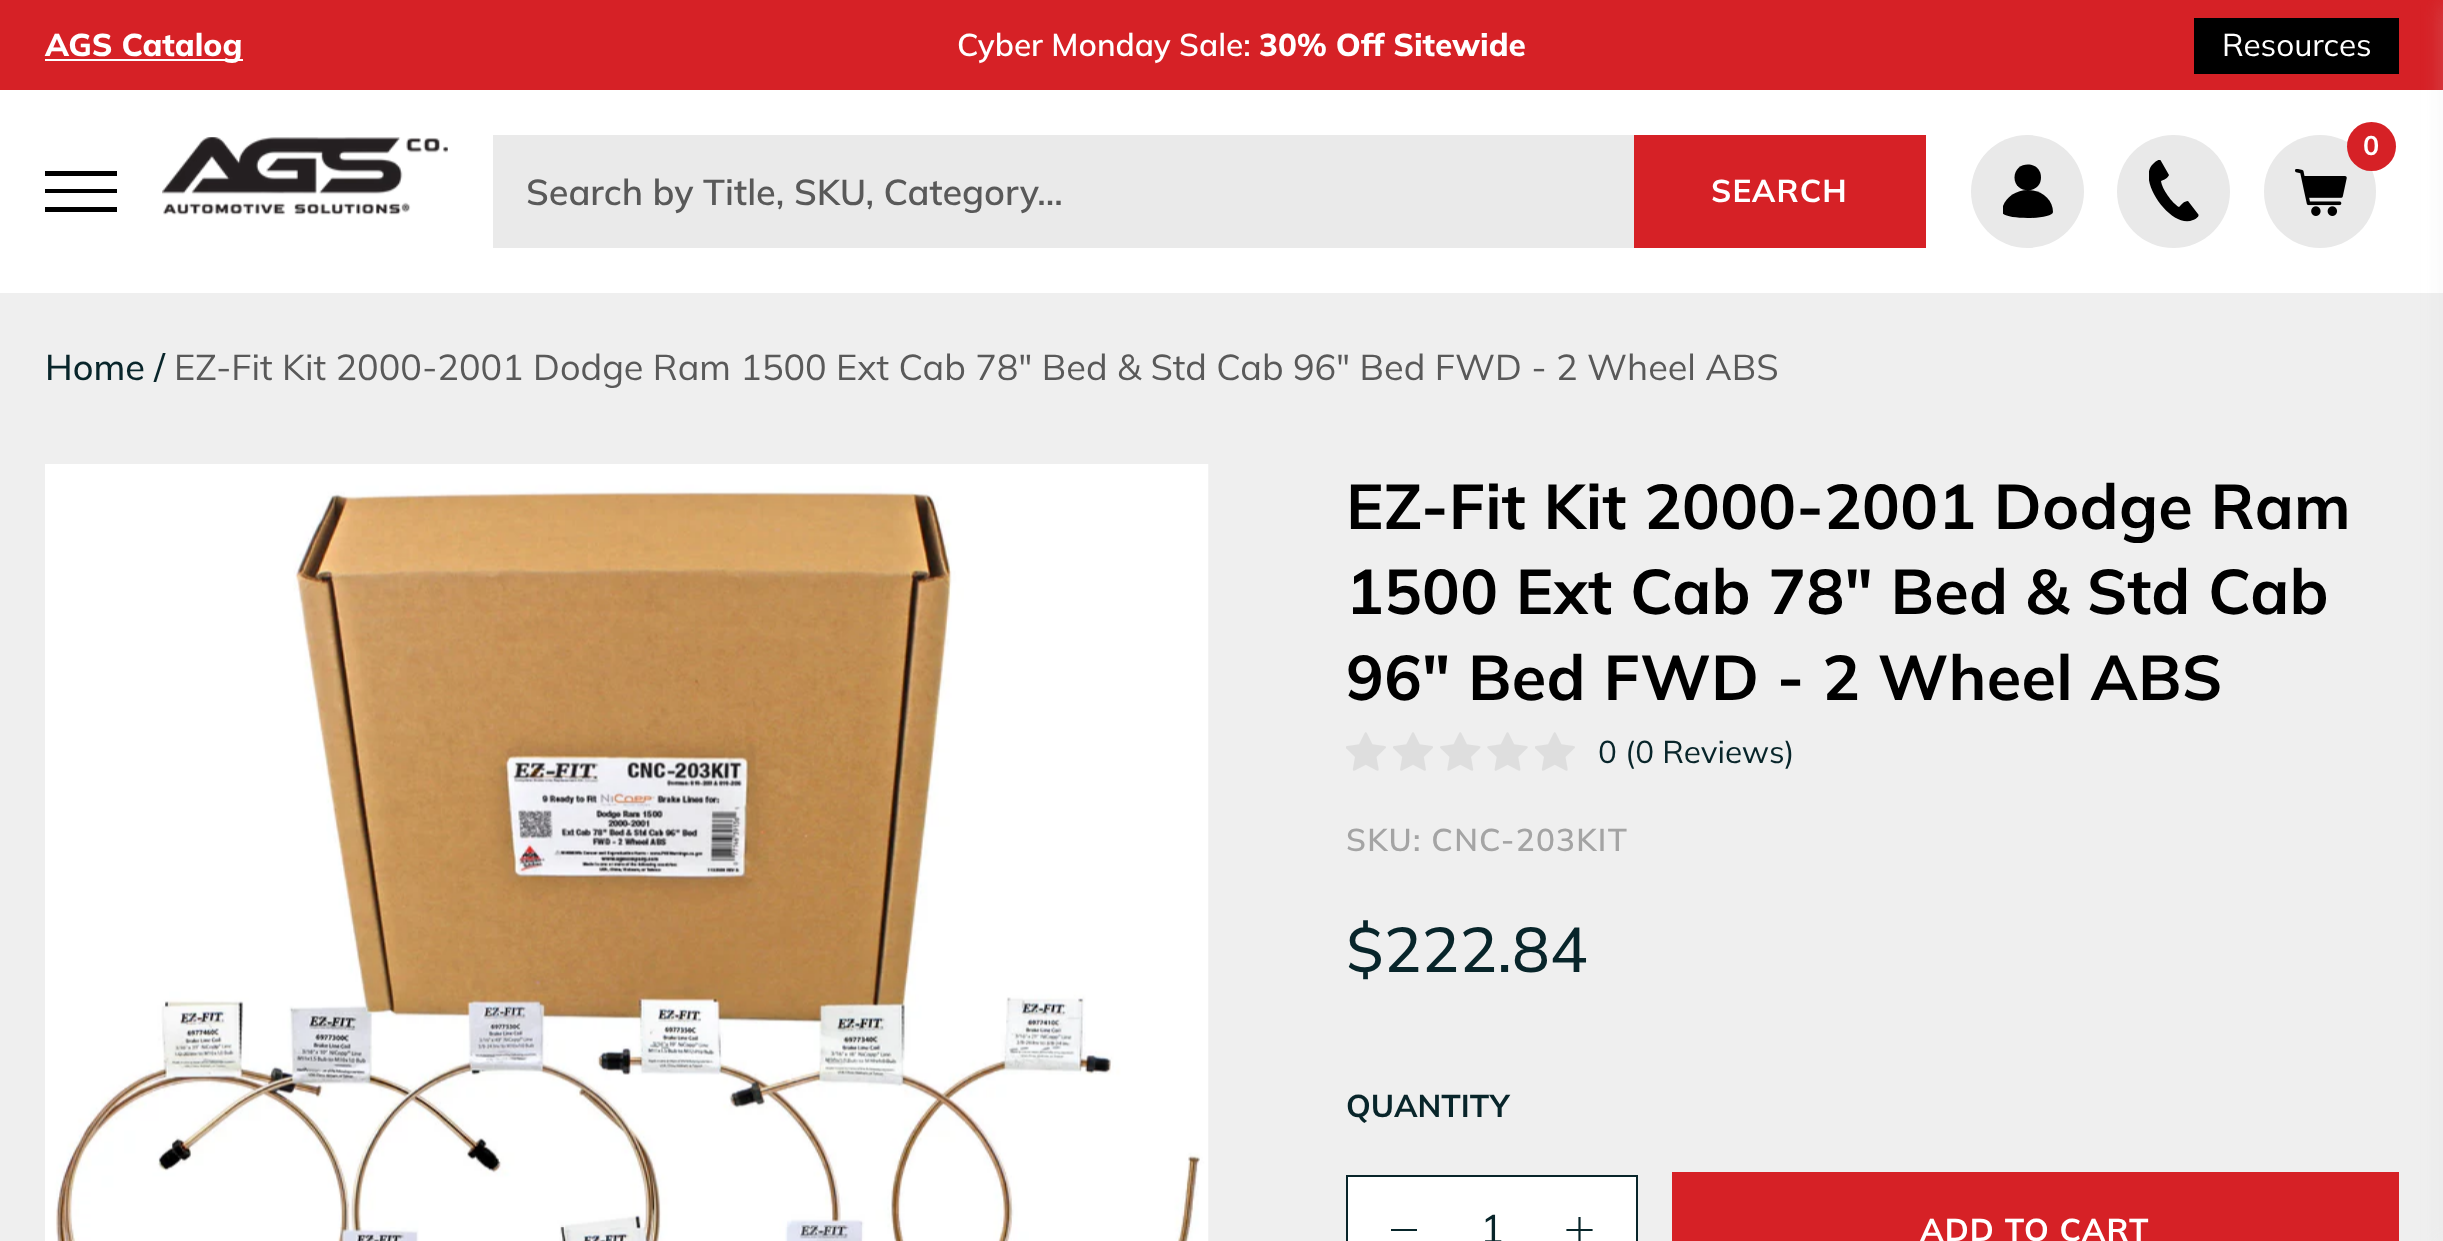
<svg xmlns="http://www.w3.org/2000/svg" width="2443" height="1241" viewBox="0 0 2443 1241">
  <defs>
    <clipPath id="clip1"><rect x="2003" y="164" width="51" height="54"/></clipPath>
    <clipPath id="clip2"><rect x="2149" y="160" width="52" height="63"/></clipPath>
  </defs>
  <rect width="100%" height="100%" fill="rgb(239,239,239)"/>
  <rect x="0" y="0" width="2443" height="90" fill="rgb(214,33,38)"/>
  <rect x="45" y="59" width="198" height="2" fill="rgb(255,255,255)"/>
  <text x="45" y="56" font-family="Mulish" font-size="31.5" font-weight="800" fill="rgb(255,255,255)">AGS Catalog</text>
  <text x="957" y="56" font-family="Mulish" font-size="31.5" font-weight="600" fill="rgb(255,255,255)">Cyber Monday Sale:</text>
  <text x="1259" y="56" font-family="Mulish" font-size="31.5" font-weight="800" fill="rgb(255,255,255)">30% Off Sitewide</text>
  <rect x="2194" y="18" width="205" height="56" fill="rgb(0,0,0)"/>
  <text x="2222" y="56" font-family="Mulish" font-size="31.5" fill="rgb(255,255,255)">Resources</text>
  <rect x="0" y="90" width="2443" height="203" fill="rgb(255,255,255)"/>
  <path d="M117 176H45V171H117ZM117 212H45V207H117ZM117 193H45V189H117Z" fill="rgb(0,0,0)"/>
  <image x="162" y="137" width="286" height="78" href="pic1.png"/>
  <rect x="493" y="135" width="1141" height="113" fill="rgb(234,234,234)"/>
  <text x="526" y="205" font-family="Mulish" font-size="36" font-weight="600" fill="rgb(89,89,89)">Search by Title, SKU, Category...</text>
  <rect x="1634" y="135" width="292" height="113" fill="rgb(214,33,38)"/>
  <text x="1711" y="202" font-family="Mulish" font-size="31.5" font-weight="bold" letter-spacing="1.1" fill="rgb(255,255,255)">SEARCH</text>
  <circle cx="2027.5" cy="191.5" r="56.5" fill="rgb(233,233,233)"/>
  <path d="M2041 177.5C2041 194.5 2014.5 194.5 2014.5 177.5C2014.5 160 2041 160 2041 177.5" fill="rgb(0,0,0)"/>
  <g clip-path="url(#clip1)">
    <path d="M2002 212C2002 220 2053 220 2053 212C2053 200 2042 190 2028 190C2014 190 2002 200 2002 212Z" fill="rgb(0,0,0)"/>
  </g>
  <circle cx="2173.5" cy="191.5" r="56.5" fill="rgb(233,233,233)"/>
  <g clip-path="url(#clip2)">
    <path d="M2153 164C2156 161 2160 158 2161 161L2169 175C2168 178 2164 180 2161 181C2162 189 2172 203 2179 207C2181 205 2184 201 2188 201L2198 214C2200 216 2196 219 2193 220C2172 230 2136 180 2153 164Z" fill="rgb(0,0,0)" fill-rule="evenodd"/>
  </g>
  <rect x="2264" y="135" width="112" height="113" rx="56" fill="rgb(233,233,233)"/>
  <circle cx="2371.5" cy="146.5" r="24.5" fill="rgb(214,33,38)"/>
  <text x="2363" y="155" font-family="Mulish" font-size="27" font-weight="bold" fill="rgb(255,255,255)">0</text>
  <image x="2295" y="169" width="52" height="47" href="pic2.png"/>
  <rect x="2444" y="5" width="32" height="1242" fill="rgba(214,214,214,0.24)" filter="blur(11px)"/>
  <text x="45" y="380" font-family="Mulish" font-size="36" font-weight="500" fill="rgb(8,37,42)">Home /</text>
  <text x="174" y="380" font-family="Mulish" font-size="36" fill="rgb(89,89,89)">EZ-Fit Kit 2000-2001 Dodge Ram 1500 Ext Cab 78" Bed &amp; Std Cab 96" Bed FWD - 2 Wheel ABS</text>
  <image x="45" y="464" width="1164" height="777" href="pic3.png"/>
  <g font-family="Mulish" font-size="63" font-weight="bold" letter-spacing="0.25" fill="rgb(0,0,0)">
    <text>
      <tspan x="1346" y="529">EZ-Fit Kit 2000-2001 Dodge Ram</tspan>
      <tspan x="1346" y="614">1500 Ext Cab 78" Bed &amp; Std Cab</tspan>
      <tspan x="1346" y="700">96" Bed FWD - 2 Wheel ABS</tspan>
    </text>
  </g>
  <image x="1346" y="732" width="40" height="39" href="pic4.png"/>
  <image x="1393" y="732" width="40" height="39" href="pic5.png"/>
  <image x="1440" y="732" width="41" height="39" href="pic6.png"/>
  <image x="1487" y="732" width="41" height="39" href="pic7.png"/>
  <image x="1535" y="732" width="40" height="39" href="pic4.png"/>
  <text x="1598" y="763" font-family="Mulish" font-size="31.5" fill="rgb(8,37,42)">0 (0 Reviews)</text>
  <text x="1346" y="851" font-family="Mulish" font-size="31.5" font-weight="600" letter-spacing="1.25" fill="rgb(164,164,164)">SKU: CNC-203KIT</text>
  <text x="1346" y="972" font-family="Mulish" font-size="63" font-weight="500" fill="rgb(8,37,42)">$222.84</text>
  <text x="1346" y="1117" font-family="Mulish" font-size="31.5" font-weight="bold" fill="rgb(8,37,42)">QUANTITY</text>
  <rect x="1347" y="1176" width="290" height="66" fill="rgb(255,255,255)" stroke="rgb(8,37,42)" stroke-width="2"/>
  <rect x="1391" y="1229" width="26" height="2" fill="rgb(8,37,42)"/>
  <text x="1480" y="1243" font-family="Mulish" font-size="40" fill="rgb(8,37,42)">1</text>
  <path d="M1567.5 1230H1591.5M1579.5 1218V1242" fill="none" stroke="rgb(8,37,42)" stroke-width="2.2" stroke-linecap="square"/>
  <rect x="1672" y="1172" width="727" height="69" fill="rgb(214,33,38)"/>
  <text x="1920" y="1241" font-family="Mulish" font-size="31.5" font-weight="bold" letter-spacing="1.1" fill="rgb(255,255,255)">ADD TO CART</text>
</svg>
